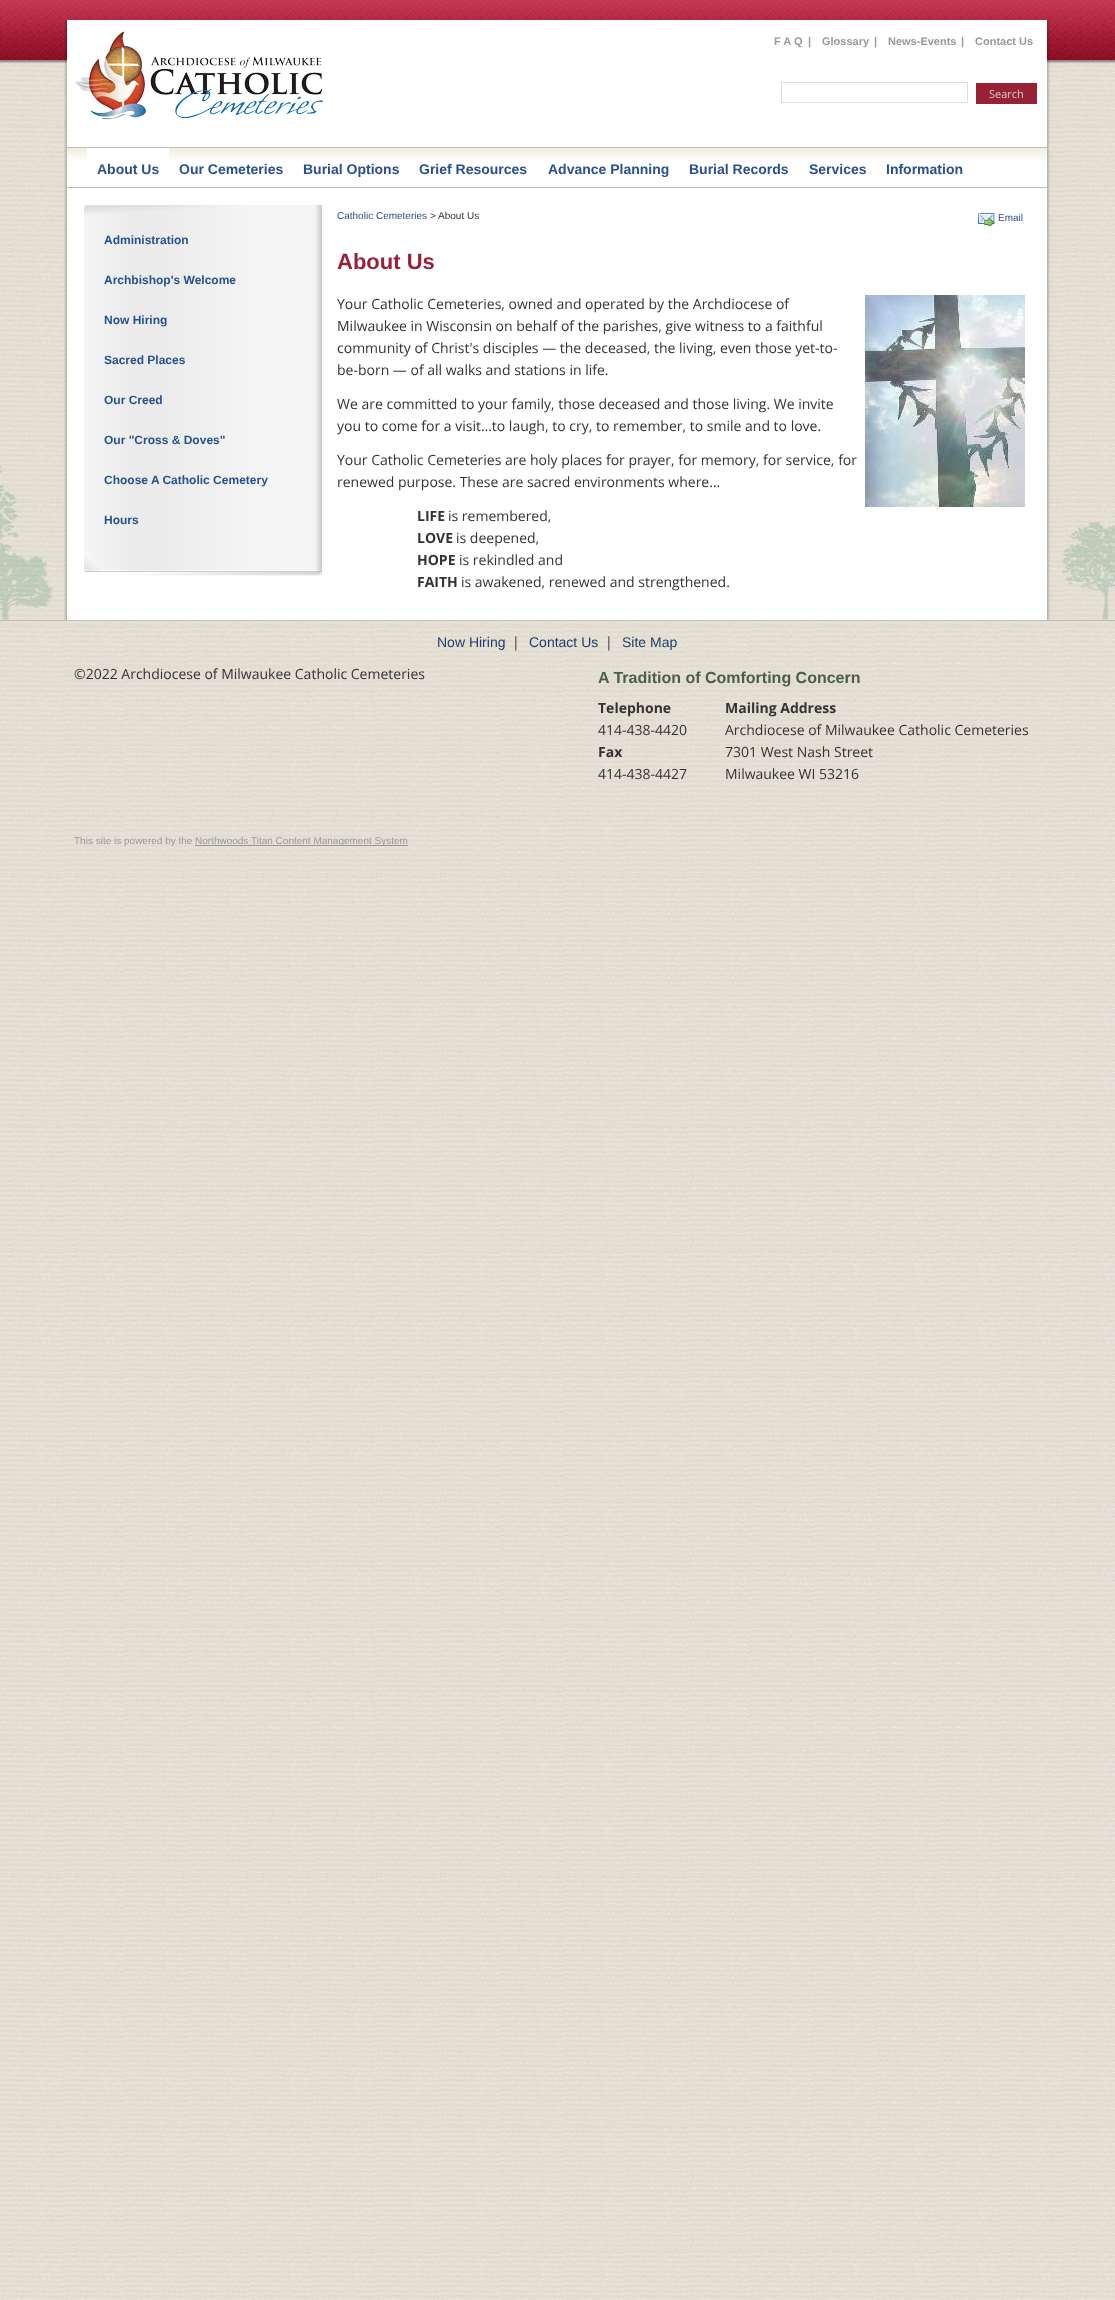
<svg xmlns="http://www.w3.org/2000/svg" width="1115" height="2300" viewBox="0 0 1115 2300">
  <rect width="100%" height="100%" fill="rgb(255,255,255)"/>
  <image x="0" y="60" width="1115" height="2240" href="pic1.png"/>
  <image x="0" y="0" width="1115" height="64" href="pic2.png"/>
  <image x="0" y="465" width="1115" height="156" href="pic3.png"/>
  <image x="64" y="20" width="986" height="600" href="pic4.png"/>
  <image x="75" y="31" width="248" height="89" href="pic5.png"/>
  <g font-family="Liberation Sans" font-size="11" font-weight="bold" fill="rgb(153,153,153)">
    <text x="774" y="45">F A Q</text>
    <text x="808" y="45">|</text>
    <text x="822" y="45">Glossary</text>
    <text x="874" y="45">|</text>
    <text x="888" y="45">News-Events</text>
    <text x="961" y="45">|</text>
    <text x="975" y="45">Contact Us</text>
  </g>
  <rect x="781.5" y="82.5" width="186" height="20" fill="none" stroke="rgb(221,221,221)"/>
  <rect x="976" y="83" width="61" height="21" fill="rgb(153,33,53)"/>
  <text x="989" y="98" font-family="Open Sans" font-size="11" fill="rgb(207,207,207)">Search</text>
  <image x="67" y="148" width="980" height="12" href="pic6.png"/>
  <rect x="67" y="147" width="980" height="1" fill="rgb(190,190,190)"/>
  <rect x="67" y="187" width="980" height="1" fill="rgb(190,190,190)"/>
  <rect x="87" y="148" width="82" height="12" fill="rgb(255,255,255)"/>
  <g font-family="Liberation Sans" font-size="14" font-weight="bold" fill="rgb(41,80,141)">
    <text x="97" y="174">About Us</text>
    <text x="179" y="174">Our Cemeteries</text>
    <text x="303" y="174">Burial Options</text>
    <text x="419" y="174">Grief Resources</text>
    <text x="548" y="174">Advance Planning</text>
    <text x="689" y="174">Burial Records</text>
    <text x="809" y="174">Services</text>
    <text x="886" y="174">Information</text>
  </g>
  <image x="84" y="205" width="238" height="14" href="pic7.png"/>
  <image x="84" y="520" width="238" height="56" href="pic8.png"/>
  <image x="84" y="219" width="238" height="301" href="pic9.png"/>
  <g font-family="Liberation Sans" font-size="12" font-weight="bold" fill="rgb(41,80,141)">
    <text x="104" y="244">Administration</text>
    <text x="104" y="284">Archbishop's Welcome</text>
    <text x="104" y="324">Now Hiring</text>
    <text x="104" y="364">Sacred Places</text>
    <text x="104" y="404">Our Creed</text>
    <text x="104" y="444">Our "Cross &amp; Doves"</text>
    <text x="104" y="484">Choose A Catholic Cemetery</text>
    <text x="104" y="524">Hours</text>
  </g>
  <text x="337" y="219" font-family="Liberation Sans" font-size="10" fill="rgb(41,80,141)">Catholic Cemeteries</text>
  <text x="430" y="219" font-family="Liberation Sans" font-size="10" fill="rgb(51,51,51)">&gt; About Us</text>
  <image x="978" y="213" width="17" height="13" href="pic10.png"/>
  <text x="998" y="221" font-family="Liberation Sans" font-size="10" fill="rgb(41,80,141)">Email</text>
  <text x="337" y="269" font-family="Liberation Sans" font-size="22" font-weight="bold" fill="rgb(153,33,53)">About Us</text>
  <text x="337" y="309" font-family="Open Sans" font-size="14" fill="rgb(51,51,51)">Your Catholic Cemeteries, owned and operated by the Archdiocese of</text>
  <image x="865" y="295" width="160" height="212" href="pic11.png"/>
  <g font-family="Open Sans" font-size="14" fill="rgb(51,51,51)">
    <text>
      <tspan x="337" y="331">Milwaukee in Wisconsin on behalf of the parishes, give witness to a faithful</tspan>
      <tspan x="337" y="353">community of Christ's disciples — the deceased, the living, even those yet-to-</tspan>
      <tspan x="337" y="375">be-born — of all walks and stations in life.</tspan>
    </text>
    <text>
      <tspan x="337" y="409">We are committed to your family, those deceased and those living. We invite</tspan>
      <tspan x="337" y="431">you to come for a visit…to laugh, to cry, to remember, to smile and to love.</tspan>
    </text>
    <text>
      <tspan x="337" y="465">Your Catholic Cemeteries are holy places for prayer, for memory, for service, for</tspan>
      <tspan x="337" y="487">renewed purpose. These are sacred environments where…</tspan>
    </text>
  </g>
  <text x="417" y="521" font-family="Open Sans" font-size="14" font-weight="bold" fill="rgb(51,51,51)">LIFE</text>
  <text x="448" y="521" font-family="Open Sans" font-size="14" fill="rgb(51,51,51)">is remembered,</text>
  <text x="417" y="543" font-family="Open Sans" font-size="14" font-weight="bold" fill="rgb(51,51,51)">LOVE</text>
  <text x="456" y="543" font-family="Open Sans" font-size="14" fill="rgb(51,51,51)">is deepened,</text>
  <text x="417" y="565" font-family="Open Sans" font-size="14" font-weight="bold" fill="rgb(51,51,51)">HOPE</text>
  <text x="459" y="565" font-family="Open Sans" font-size="14" fill="rgb(51,51,51)">is rekindled and</text>
  <text x="417" y="587" font-family="Open Sans" font-size="14" font-weight="bold" fill="rgb(51,51,51)">FAITH</text>
  <text x="461" y="587" font-family="Open Sans" font-size="14" fill="rgb(51,51,51)">is awakened, renewed and strengthened.</text>
  <text x="437" y="647" font-family="Liberation Sans" font-size="14" fill="rgb(31,61,107)">Now Hiring</text>
  <text x="512" y="647" font-family="Open Sans" font-size="14" fill="rgb(51,51,51)">|</text>
  <text x="529" y="647" font-family="Liberation Sans" font-size="14" fill="rgb(31,61,107)">Contact Us</text>
  <text x="605" y="647" font-family="Open Sans" font-size="14" fill="rgb(51,51,51)">|</text>
  <text x="622" y="647" font-family="Liberation Sans" font-size="14" fill="rgb(31,61,107)">Site Map</text>
  <text x="74" y="679" font-family="Open Sans" font-size="14" fill="rgb(51,51,51)">©2022 Archdiocese of Milwaukee Catholic Cemeteries</text>
  <text x="598" y="683" font-family="Liberation Sans" font-size="16" font-weight="bold" fill="rgb(78,94,69)">A Tradition of Comforting Concern</text>
  <text x="598" y="713" font-family="Open Sans" font-size="14" font-weight="bold" fill="rgb(51,51,51)">Telephone</text>
  <text x="598" y="735" font-family="Open Sans" font-size="14" fill="rgb(51,51,51)">414-438-4420</text>
  <text x="598" y="757" font-family="Open Sans" font-size="14" font-weight="bold" fill="rgb(51,51,51)">Fax</text>
  <text x="598" y="779" font-family="Open Sans" font-size="14" fill="rgb(51,51,51)">414-438-4427</text>
  <text x="725" y="713" font-family="Open Sans" font-size="14" font-weight="bold" fill="rgb(51,51,51)">Mailing Address</text>
  <g font-family="Open Sans" font-size="14" fill="rgb(51,51,51)">
    <text>
      <tspan x="725" y="735">Archdiocese of Milwaukee Catholic Cemeteries</tspan>
      <tspan x="725" y="757">7301 West Nash Street</tspan>
      <tspan x="725" y="779">Milwaukee WI 53216</tspan>
    </text>
  </g>
  <text x="74" y="844" font-family="Liberation Sans" font-size="10" fill="rgb(153,153,153)">This site is powered by the</text>
  <rect x="195" y="845" width="213" height="1" fill="rgb(153,153,153)"/>
  <text x="195" y="844" font-family="Liberation Sans" font-size="10" fill="rgb(153,153,153)">Northwoods Titan Content Management System</text>
</svg>
